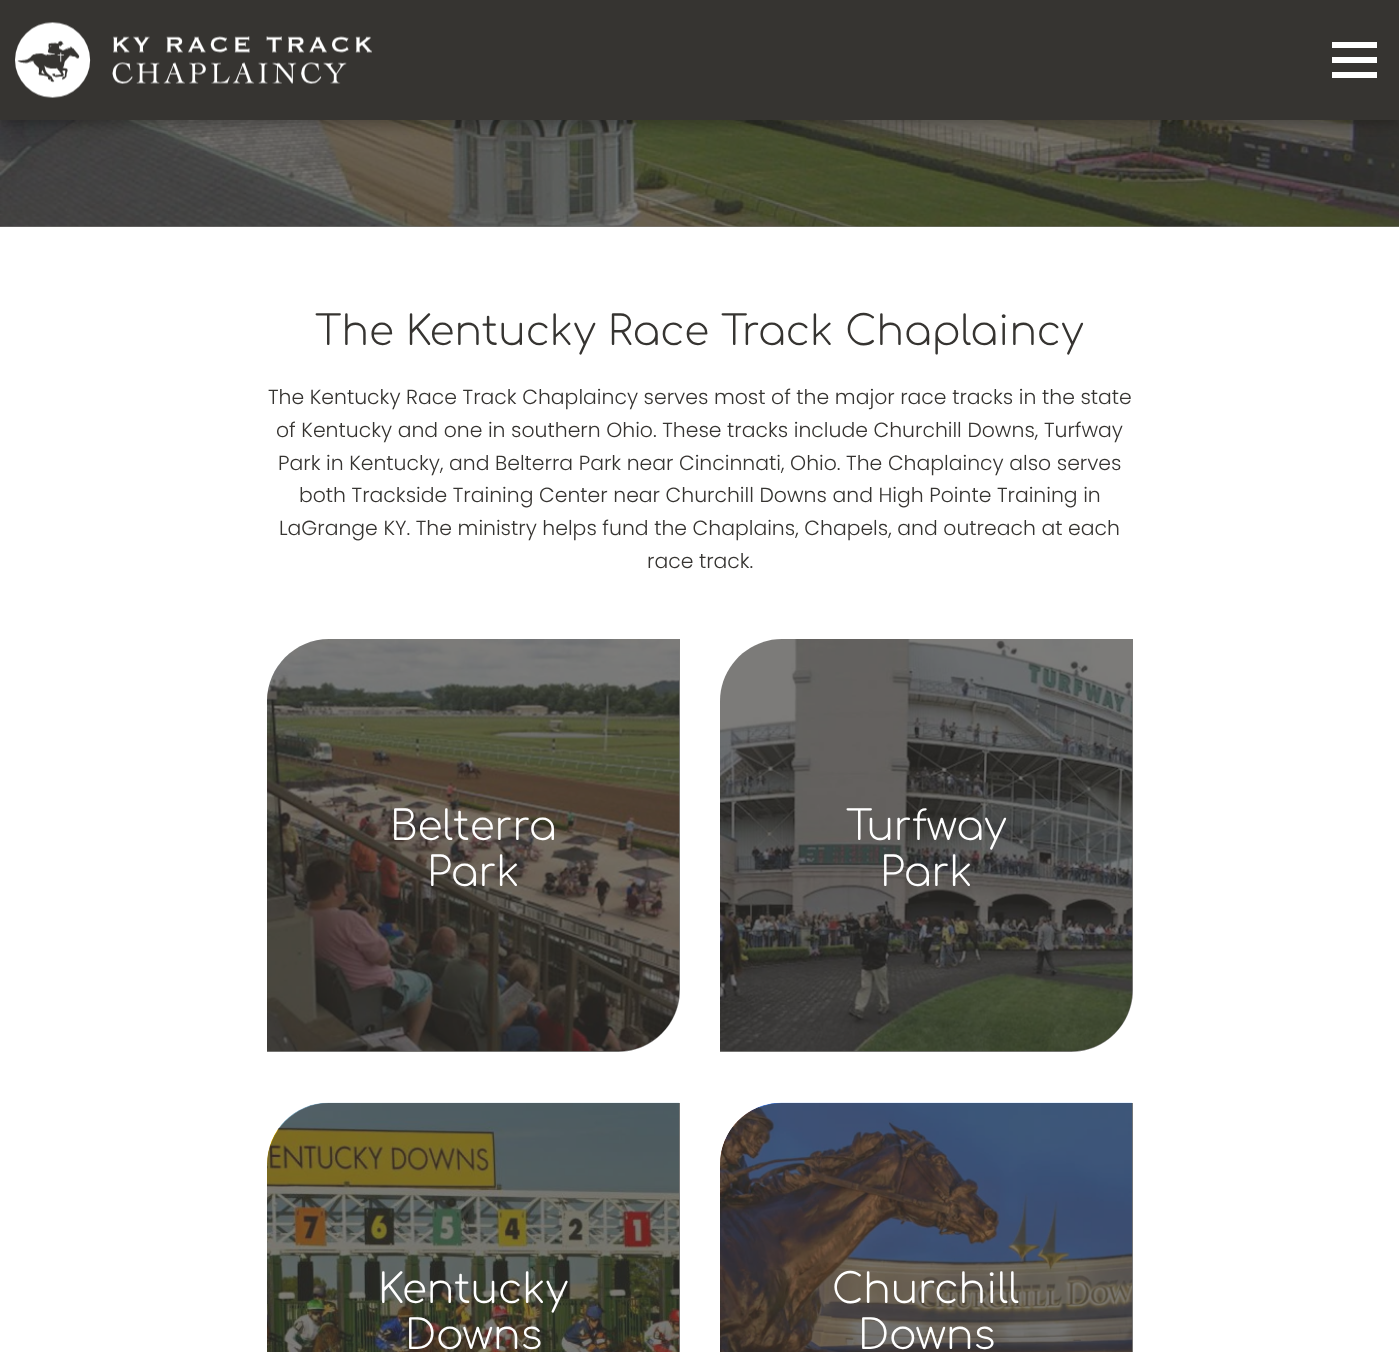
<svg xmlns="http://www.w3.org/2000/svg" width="1399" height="1352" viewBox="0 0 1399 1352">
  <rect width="100%" height="100%" fill="rgb(255,255,255)"/>
  <rect x="0" y="226" width="1399" height="1" fill="rgb(124,123,121)"/>
  <image x="0" y="120" width="1399" height="107" href="pic2.png"/>
  <rect x="0" y="5" width="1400" height="120" fill="rgba(0,0,0,0.25)" filter="blur(6px)"/>
  <rect x="0" y="0" width="1399" height="120" fill="rgb(54,52,49)"/>
  <image x="15" y="22" width="357" height="76" href="pic1.png"/>
  <rect x="1332" y="42" width="45" height="6" fill="rgb(255,255,255)"/>
  <rect x="1332" y="57" width="45" height="6" fill="rgb(255,255,255)"/>
  <rect x="1332" y="72" width="45" height="6" fill="rgb(255,255,255)"/>
  <text x="315" y="345" font-family="Comfortaa" font-size="40.75" font-weight="300" fill="rgb(54,52,49)">The Kentucky Race Track Chaplaincy</text>
  <g font-family="Poppins" font-size="20.4" font-weight="300" fill="rgb(54,52,49)">
    <text x="268" y="404">The Kentucky Race Track Chaplaincy serves most of the major race tracks in the state</text>
    <text x="276" y="437">of Kentucky and one in southern Ohio. These tracks include Churchill Downs, Turfway</text>
    <text x="278" y="470">Park in Kentucky, and Belterra Park near Cincinnati, Ohio. The Chaplaincy also serves</text>
    <text x="299" y="502">both Trackside Training Center near Churchill Downs and High Pointe Training in</text>
    <text x="279" y="535">LaGrange KY. The ministry helps fund the Chaplains, Chapels, and outreach at each</text>
    <text x="647" y="568">race track.</text>
  </g>
  <image x="267" y="639" width="413" height="413" href="pic3.png"/>
  <path d="M329 639H680V990C680 1024 652 1052 618 1052H267V701C267 667 295 639 329 639Z" fill="rgba(54,52,49,0.65)"/>
  <g font-family="Comfortaa" font-size="40.75" font-weight="300" fill="rgb(255,255,255)">
    <text x="390" y="840">Belterra</text>
    <text x="427" y="886">Park</text>
  </g>
  <image x="720" y="639" width="413" height="413" href="pic4.png"/>
  <path d="M782 639H1133V990C1133 1024 1105 1052 1071 1052H720V701C720 667 748 639 782 639Z" fill="rgba(54,52,49,0.65)"/>
  <g font-family="Comfortaa" font-size="40.75" font-weight="300" fill="rgb(255,255,255)">
    <text x="846" y="840">Turfway</text>
    <text x="880" y="886">Park</text>
  </g>
  <image x="267" y="1102" width="413" height="250" href="pic5.png"/>
  <path d="M329 1103H680V1352C680 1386 652 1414 618 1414H267V1165C267 1131 295 1103 329 1103Z" fill="rgba(54,52,49,0.65)"/>
  <g font-family="Comfortaa" font-size="40.75" font-weight="300" fill="rgb(255,255,255)">
    <text x="378" y="1303">Kentucky</text>
    <text x="405" y="1349">Downs</text>
  </g>
  <image x="720" y="1102" width="413" height="250" href="pic6.png"/>
  <path d="M782 1103H1133V1352C1133 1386 1105 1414 1071 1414H720V1165C720 1131 748 1103 782 1103Z" fill="rgba(54,52,49,0.65)"/>
  <g font-family="Comfortaa" font-size="40.75" font-weight="300" fill="rgb(255,255,255)">
    <text x="832" y="1303">Churchill</text>
    <text x="858" y="1349">Downs</text>
  </g>
</svg>
